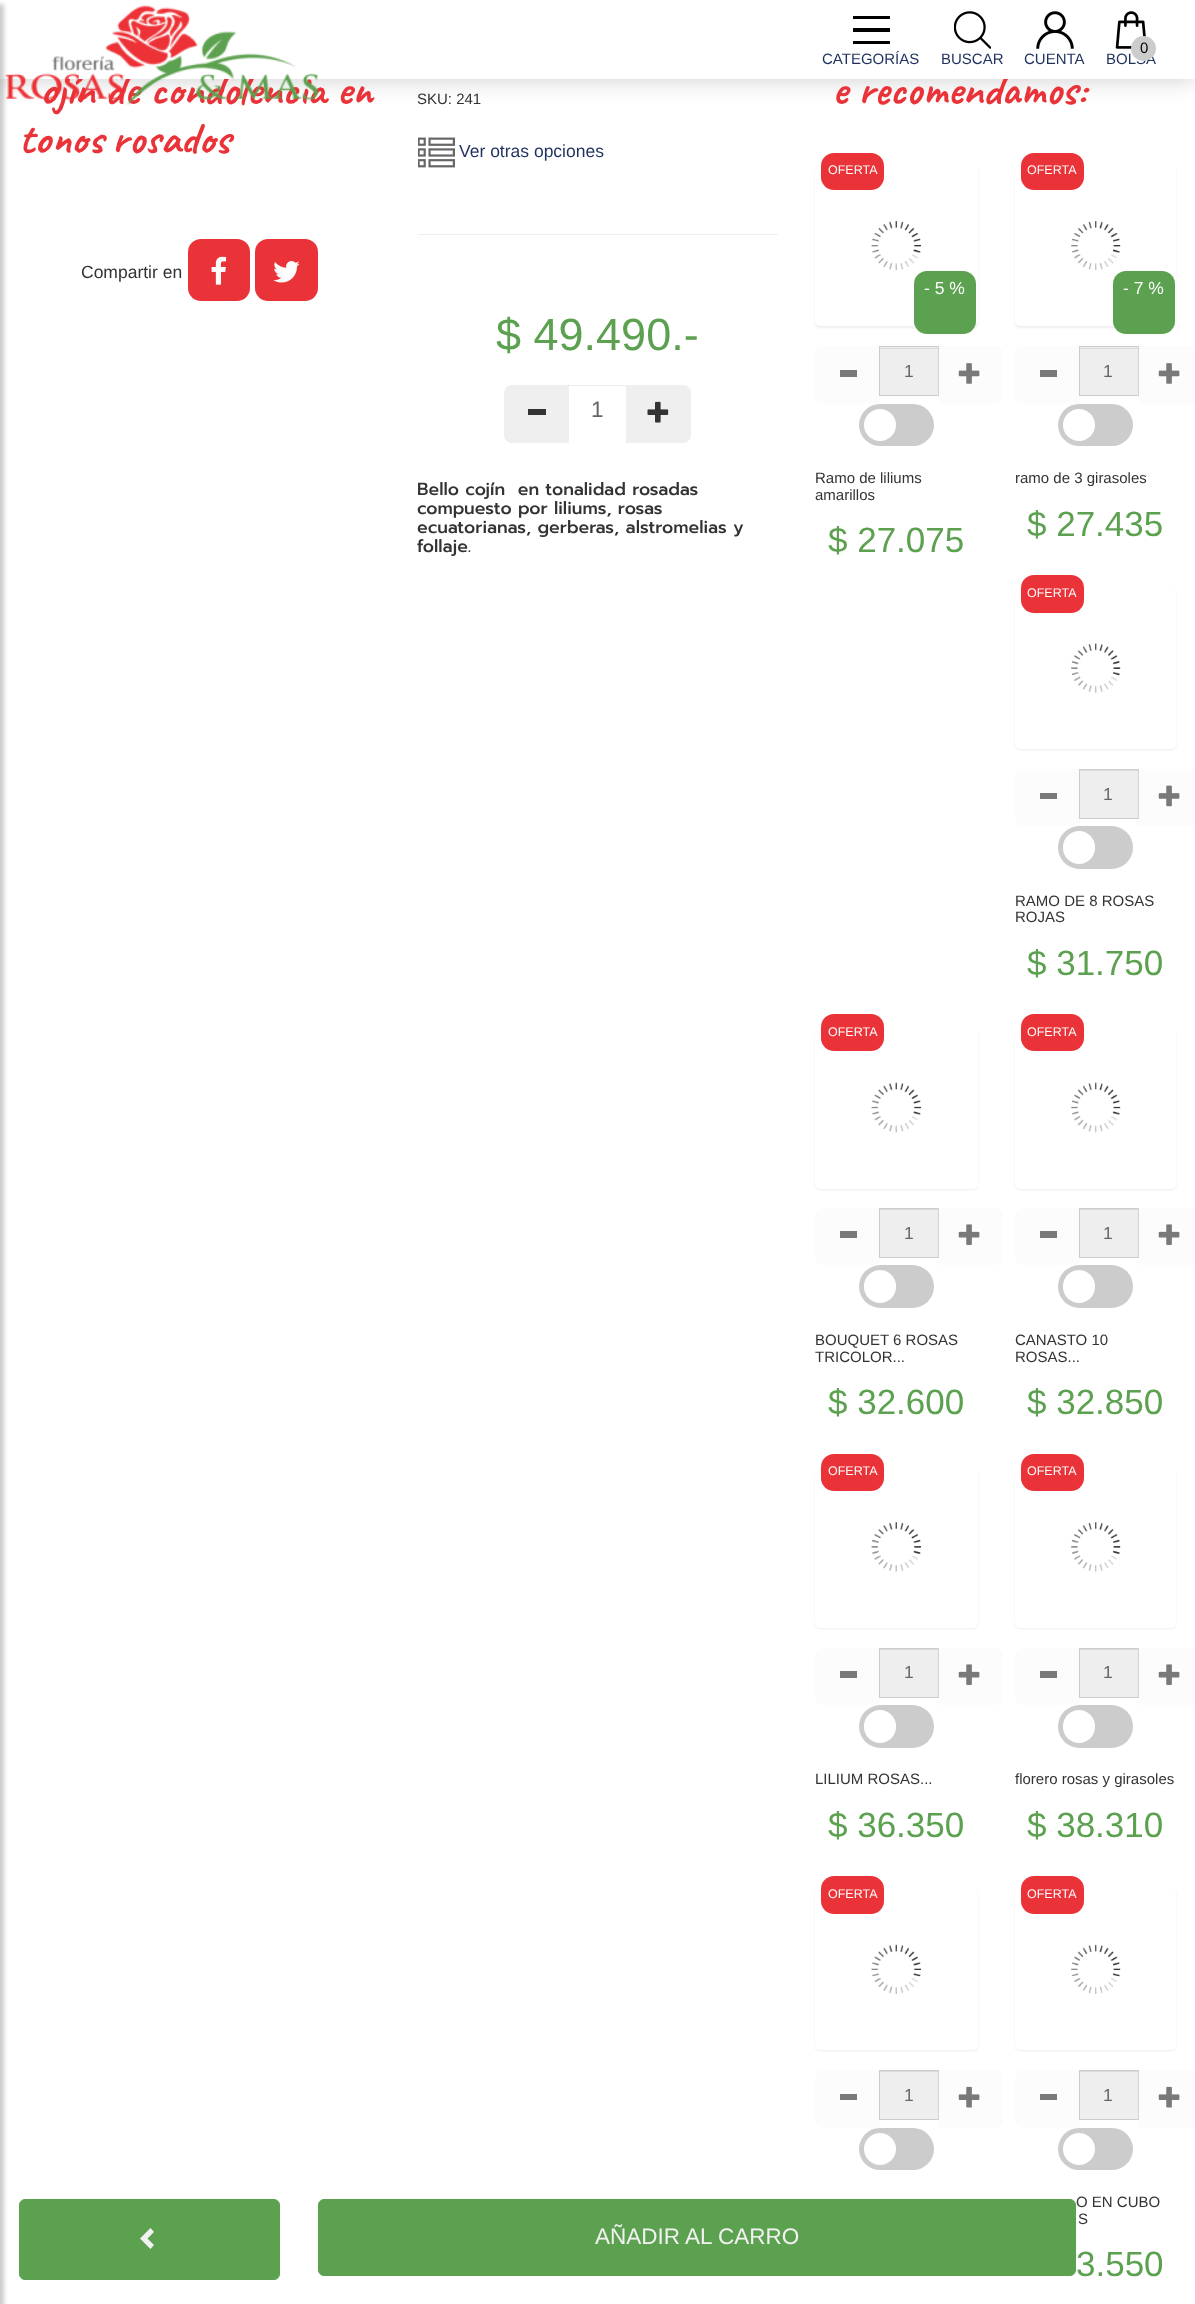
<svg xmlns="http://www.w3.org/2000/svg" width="1195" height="2304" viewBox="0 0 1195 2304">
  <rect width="100%" height="100%" fill="rgb(255,255,255)"/>
  <rect x="568" y="385" width="60" height="1" fill="rgb(237,237,237)"/>
  <rect x="0" y="0" width="1195" height="79" fill="rgba(0,0,0,0.2)" filter="blur(12.5px)"/>
  <g font-family="Caveat" font-size="45" font-weight="bold" fill="rgb(234,51,56)">
    <text x="40" y="104">ojín de condolencia en</text>
    <text x="832" y="104">e recomendamos:</text>
  </g>
  <rect x="0" y="0" width="1195" height="79" fill="rgb(255,255,255)"/>
  <image x="5" y="5" width="314" height="100" href="pic1.png"/>
  <rect x="-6" y="4" width="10" height="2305" fill="rgba(0,0,0,0.2)" filter="blur(2px)"/>
  <rect x="853" y="16" width="37" height="3" fill="rgb(0,0,0)"/>
  <rect x="853" y="28" width="37" height="4" fill="rgb(0,0,0)"/>
  <rect x="853" y="41" width="37" height="3" fill="rgb(0,0,0)"/>
  <text x="822" y="64" font-family="Liberation Sans" font-size="15" fill="rgb(31,49,95)">CATEGORÍAS</text>
  <image x="954" y="11" width="37" height="38" href="pic2.png"/>
  <text x="941" y="64" font-family="Liberation Sans" font-size="15" fill="rgb(31,49,95)">BUSCAR</text>
  <image x="1036" y="11" width="38" height="38" href="pic3.png"/>
  <text x="1024" y="64" font-family="Liberation Sans" font-size="15" fill="rgb(31,49,95)">CUENTA</text>
  <image x="1115" y="11" width="31" height="38" href="pic4.png"/>
  <text x="1106" y="64" font-family="Liberation Sans" font-size="15" fill="rgb(31,49,95)">BOLSA</text>
  <circle cx="1143.5" cy="48.5" r="12.5" fill="rgb(204,204,204)"/>
  <text x="1140" y="53" font-family="Liberation Sans" font-size="15" fill="rgb(0,0,0)">0</text>
  <text x="19" y="153" word-spacing="-2" font-family="Caveat" font-size="45" font-weight="bold" fill="rgb(234,51,56)">tonos rosados</text>
  <text x="81" y="278" font-family="Liberation Sans" font-size="17.5" fill="rgb(51,51,51)">Compartir en</text>
  <rect x="188" y="239" width="62" height="62" rx="13" fill="rgb(234,51,56)"/>
  <image x="211" y="256" width="16" height="29" href="pic5.png"/>
  <rect x="255" y="239" width="63" height="62" rx="13" fill="rgb(234,51,56)"/>
  <image x="273" y="261" width="27" height="22" href="pic6.png"/>
  <text x="417" y="104" font-family="Liberation Sans" font-size="15" fill="rgb(51,51,51)">SKU: 241</text>
  <image x="418" y="137" width="37" height="31" href="pic7.png"/>
  <text x="459" y="157" font-family="Liberation Sans" font-size="17.5" fill="rgb(31,49,95)">Ver otras opciones</text>
  <rect x="418" y="234" width="360" height="1" fill="rgb(238,238,238)"/>
  <text x="496" y="350" font-family="Liberation Sans" font-size="45" fill="rgb(92,161,80)">$ 49.490.-</text>
  <path d="M512 385H569V443H512C507.5 443 504 439.5 504 435V393C504 388.5 507.5 385 512 385Z" fill="rgb(239,239,239)"/>
  <rect x="568" y="385" width="1" height="1" fill="rgb(222,222,222)"/>
  <rect x="528" y="409" width="18" height="6" fill="rgb(51,51,51)"/>
  <text x="591" y="417" font-family="Liberation Sans" font-size="22.5" fill="rgb(102,102,102)">1</text>
  <path d="M626 385H683C687.5 385 691 388.5 691 393V435C691 439.5 687.5 443 683 443H626Z" fill="rgb(239,239,239)"/>
  <image x="647" y="401" width="22" height="22" href="pic8.png"/>
  <g font-family="Prompt" font-size="17.5" font-weight="500" fill="rgb(51,51,51)">
    <text xml:space="preserve"><tspan x="417" y="495">Bello cojín  en tonalidad rosadas</tspan><tspan x="417" y="514">compuesto por liliums, rosas</tspan><tspan x="417" y="533">ecuatorianas, gerberas, alstromelias y</tspan><tspan x="417" y="552">follaje.</tspan></text>
  </g>
  <rect x="815" y="166" width="163" height="162" rx="5" fill="rgba(0,0,0,0.07)" filter="blur(1px)"/>
  <rect x="815" y="165" width="163" height="161" rx="5" fill="rgb(255,255,255)"/>
  <image x="871" y="221" width="50" height="50" href="pic9.png"/>
  <rect x="821" y="153" width="63" height="37" rx="13" fill="rgb(234,51,56)"/>
  <text x="828" y="174" font-family="Liberation Sans" font-size="12.5" fill="rgb(252,252,252)">OFERTA</text>
  <rect x="914" y="271" width="62" height="63" rx="13" fill="rgb(92,161,80)"/>
  <text x="924" y="294" font-family="Liberation Sans" font-size="17.5" fill="rgb(252,252,252)">- 5 %</text>
  <path d="M823 346H880V404H823C818.5 404 815 400.5 815 396V354C815 349.5 818.5 346 823 346Z" fill="rgb(252,252,252)"/>
  <rect x="840" y="370" width="17" height="7" fill="rgb(121,121,121)"/>
  <rect x="880" y="347" width="58" height="48" fill="rgb(238,238,238)"/>
  <rect x="880" y="348" width="58" height="1" fill="rgb(220,220,220)"/>
  <rect x="879.5" y="346.5" width="59" height="49" fill="none" stroke="rgb(204,204,204)"/>
  <text x="904" y="377" font-family="Liberation Sans" font-size="17.5" fill="rgb(102,102,102)">1</text>
  <path d="M938 346H995C999.5 346 1003 349.5 1003 354V396C1003 400.5 999.5 404 995 404H938Z" fill="rgba(239,239,239,0.2)"/>
  <image x="958" y="363" width="22" height="21" href="pic10.png"/>
  <rect x="859" y="404" width="75" height="42" rx="21" fill="rgb(204,204,204)"/>
  <circle cx="880" cy="425" r="16" fill="rgb(255,255,255)"/>
  <g font-family="Liberation Sans" font-size="15" fill="rgb(51,51,51)">
    <text>
      <tspan x="815" y="483">Ramo de liliums</tspan>
      <tspan x="815" y="500">amarillos</tspan>
    </text>
  </g>
  <text x="828" y="552" font-family="Liberation Sans" font-size="35" fill="rgb(92,161,80)">$ 27.075</text>
  <rect x="1015" y="166" width="161" height="162" rx="5" fill="rgba(0,0,0,0.07)" filter="blur(1px)"/>
  <rect x="1015" y="165" width="161" height="161" rx="5" fill="rgb(255,255,255)"/>
  <image x="1071" y="221" width="50" height="50" href="pic11.png"/>
  <rect x="1021" y="153" width="63" height="37" rx="13" fill="rgb(234,51,56)"/>
  <text x="1027" y="174" font-family="Liberation Sans" font-size="12.5" fill="rgb(252,252,252)">OFERTA</text>
  <rect x="1113" y="271" width="62" height="63" rx="13" fill="rgb(92,161,80)"/>
  <text x="1123" y="294" font-family="Liberation Sans" font-size="17.5" fill="rgb(252,252,252)">- 7 %</text>
  <path d="M1023 346H1080V404H1023C1018.5 404 1015 400.5 1015 396V354C1015 349.5 1018.5 346 1023 346Z" fill="rgb(252,252,252)"/>
  <rect x="1040" y="370" width="17" height="7" fill="rgb(121,121,121)"/>
  <rect x="1080" y="347" width="58" height="48" fill="rgb(238,238,238)"/>
  <rect x="1080" y="348" width="58" height="1" fill="rgb(220,220,220)"/>
  <rect x="1079.5" y="346.5" width="59" height="49" fill="none" stroke="rgb(204,204,204)"/>
  <text x="1103" y="377" font-family="Liberation Sans" font-size="17.5" fill="rgb(102,102,102)">1</text>
  <rect x="1138" y="346" width="57" height="58" fill="rgba(239,239,239,0.2)"/>
  <image x="1158" y="363" width="22" height="21" href="pic10.png"/>
  <rect x="1058" y="404" width="75" height="42" rx="21" fill="rgb(204,204,204)"/>
  <circle cx="1079" cy="425" r="16" fill="rgb(255,255,255)"/>
  <text x="1015" y="483" font-family="Liberation Sans" font-size="15" fill="rgb(51,51,51)">ramo de 3 girasoles</text>
  <text x="1027" y="536" font-family="Liberation Sans" font-size="35" fill="rgb(92,161,80)">$ 27.435</text>
  <rect x="1015" y="589" width="161" height="161" rx="5" fill="rgba(0,0,0,0.07)" filter="blur(1px)"/>
  <rect x="1015" y="588" width="161" height="161" rx="5" fill="rgb(255,255,255)"/>
  <image x="1071" y="643" width="50" height="50" href="pic12.png"/>
  <rect x="1021" y="575" width="63" height="38" rx="13" fill="rgb(234,51,56)"/>
  <text x="1027" y="597" font-family="Liberation Sans" font-size="12.5" fill="rgb(252,252,252)">OFERTA</text>
  <path d="M1023 769H1080V826H1023C1018.5 826 1015 822.5 1015 818V777C1015 772.5 1018.5 769 1023 769Z" fill="rgb(252,252,252)"/>
  <rect x="1040" y="793" width="17" height="6" fill="rgb(121,121,121)"/>
  <rect x="1080" y="771" width="58" height="47" fill="rgb(238,238,238)"/>
  <rect x="1080" y="770" width="58" height="1" fill="rgb(220,220,220)"/>
  <rect x="1079.5" y="769.5" width="59" height="49" fill="none" stroke="rgb(204,204,204)"/>
  <text x="1103" y="800" font-family="Liberation Sans" font-size="17.5" fill="rgb(102,102,102)">1</text>
  <rect x="1138" y="769" width="57" height="57" fill="rgba(239,239,239,0.2)"/>
  <image x="1158" y="785" width="22" height="22" href="pic13.png"/>
  <rect x="1058" y="826" width="75" height="43" rx="21.5" fill="rgb(204,204,204)"/>
  <rect x="1063" y="831" width="32" height="33" rx="16" fill="rgb(255,255,255)"/>
  <g font-family="Liberation Sans" font-size="15" fill="rgb(51,51,51)">
    <text>
      <tspan x="1015" y="906">RAMO DE 8 ROSAS</tspan>
      <tspan x="1015" y="922">ROJAS</tspan>
    </text>
  </g>
  <text x="1027" y="975" font-family="Liberation Sans" font-size="35" fill="rgb(92,161,80)">$ 31.750</text>
  <rect x="815" y="1028" width="163" height="162" rx="5" fill="rgba(0,0,0,0.07)" filter="blur(1px)"/>
  <rect x="815" y="1026" width="163" height="163" rx="5" fill="rgb(255,255,255)"/>
  <image x="871" y="1082" width="50" height="51" href="pic14.png"/>
  <rect x="821" y="1014" width="63" height="37" rx="13" fill="rgb(234,51,56)"/>
  <text x="828" y="1036" font-family="Liberation Sans" font-size="12.5" fill="rgb(252,252,252)">OFERTA</text>
  <path d="M823 1208H880V1265H823C818.5 1265 815 1261.5 815 1257V1216C815 1211.5 818.5 1208 823 1208Z" fill="rgb(252,252,252)"/>
  <rect x="840" y="1231" width="17" height="7" fill="rgb(121,121,121)"/>
  <rect x="880" y="1210" width="58" height="47" fill="rgb(238,238,238)"/>
  <rect x="880" y="1209" width="58" height="1" fill="rgb(220,220,220)"/>
  <rect x="879.5" y="1208.5" width="59" height="49" fill="none" stroke="rgb(204,204,204)"/>
  <text x="904" y="1239" font-family="Liberation Sans" font-size="17.5" fill="rgb(102,102,102)">1</text>
  <path d="M938 1208H995C999.5 1208 1003 1211.5 1003 1216V1257C1003 1261.5 999.5 1265 995 1265H938Z" fill="rgba(239,239,239,0.2)"/>
  <image x="958" y="1224" width="22" height="21" href="pic15.png"/>
  <rect x="859" y="1265" width="75" height="43" rx="21.5" fill="rgb(204,204,204)"/>
  <rect x="864" y="1270" width="32" height="33" rx="16" fill="rgb(255,255,255)"/>
  <g font-family="Liberation Sans" font-size="15" fill="rgb(51,51,51)">
    <text>
      <tspan x="815" y="1345">BOUQUET 6 ROSAS</tspan>
      <tspan x="815" y="1362">TRICOLOR...</tspan>
    </text>
  </g>
  <text x="828" y="1414" font-family="Liberation Sans" font-size="35" fill="rgb(92,161,80)">$ 32.600</text>
  <rect x="1015" y="1028" width="161" height="162" rx="5" fill="rgba(0,0,0,0.07)" filter="blur(1px)"/>
  <rect x="1015" y="1026" width="161" height="163" rx="5" fill="rgb(255,255,255)"/>
  <image x="1071" y="1082" width="50" height="51" href="pic16.png"/>
  <rect x="1021" y="1014" width="63" height="37" rx="13" fill="rgb(234,51,56)"/>
  <text x="1027" y="1036" font-family="Liberation Sans" font-size="12.5" fill="rgb(252,252,252)">OFERTA</text>
  <path d="M1023 1208H1080V1265H1023C1018.5 1265 1015 1261.5 1015 1257V1216C1015 1211.5 1018.5 1208 1023 1208Z" fill="rgb(252,252,252)"/>
  <rect x="1040" y="1231" width="17" height="7" fill="rgb(121,121,121)"/>
  <rect x="1080" y="1210" width="58" height="47" fill="rgb(238,238,238)"/>
  <rect x="1080" y="1209" width="58" height="1" fill="rgb(220,220,220)"/>
  <rect x="1079.5" y="1208.5" width="59" height="49" fill="none" stroke="rgb(204,204,204)"/>
  <text x="1103" y="1239" font-family="Liberation Sans" font-size="17.5" fill="rgb(102,102,102)">1</text>
  <rect x="1138" y="1208" width="57" height="57" fill="rgba(239,239,239,0.2)"/>
  <image x="1158" y="1224" width="22" height="21" href="pic15.png"/>
  <rect x="1058" y="1265" width="75" height="43" rx="21.5" fill="rgb(204,204,204)"/>
  <rect x="1063" y="1270" width="32" height="33" rx="16" fill="rgb(255,255,255)"/>
  <g font-family="Liberation Sans" font-size="15" fill="rgb(51,51,51)">
    <text>
      <tspan x="1015" y="1345">CANASTO 10</tspan>
      <tspan x="1015" y="1362">ROSAS...</tspan>
    </text>
  </g>
  <text x="1027" y="1414" font-family="Liberation Sans" font-size="35" fill="rgb(92,161,80)">$ 32.850</text>
  <rect x="815" y="1468" width="163" height="161" rx="5" fill="rgba(0,0,0,0.07)" filter="blur(1px)"/>
  <rect x="815" y="1466" width="163" height="162" rx="5" fill="rgb(255,255,255)"/>
  <image x="871" y="1522" width="50" height="50" href="pic17.png"/>
  <rect x="821" y="1454" width="63" height="37" rx="13" fill="rgb(234,51,56)"/>
  <text x="828" y="1475" font-family="Liberation Sans" font-size="12.5" fill="rgb(252,252,252)">OFERTA</text>
  <path d="M823 1648H880V1705H823C818.5 1705 815 1701.5 815 1697V1656C815 1651.5 818.5 1648 823 1648Z" fill="rgb(252,252,252)"/>
  <rect x="840" y="1671" width="17" height="7" fill="rgb(121,121,121)"/>
  <rect x="880" y="1650" width="58" height="47" fill="rgb(238,238,238)"/>
  <rect x="880" y="1649" width="58" height="1" fill="rgb(220,220,220)"/>
  <rect x="879.5" y="1648.5" width="59" height="49" fill="none" stroke="rgb(204,204,204)"/>
  <text x="904" y="1678" font-family="Liberation Sans" font-size="17.5" fill="rgb(102,102,102)">1</text>
  <path d="M938 1648H995C999.5 1648 1003 1651.5 1003 1656V1697C1003 1701.5 999.5 1705 995 1705H938Z" fill="rgba(239,239,239,0.2)"/>
  <image x="958" y="1664" width="22" height="21" href="pic15.png"/>
  <rect x="859" y="1705" width="75" height="43" rx="21.5" fill="rgb(204,204,204)"/>
  <rect x="864" y="1710" width="32" height="33" rx="16" fill="rgb(255,255,255)"/>
  <text x="815" y="1784" font-family="Liberation Sans" font-size="15" fill="rgb(51,51,51)">LILIUM ROSAS...</text>
  <text x="828" y="1837" font-family="Liberation Sans" font-size="35" fill="rgb(92,161,80)">$ 36.350</text>
  <rect x="1015" y="1468" width="161" height="161" rx="5" fill="rgba(0,0,0,0.07)" filter="blur(1px)"/>
  <rect x="1015" y="1466" width="161" height="162" rx="5" fill="rgb(255,255,255)"/>
  <image x="1071" y="1522" width="50" height="50" href="pic18.png"/>
  <rect x="1021" y="1454" width="63" height="37" rx="13" fill="rgb(234,51,56)"/>
  <text x="1027" y="1475" font-family="Liberation Sans" font-size="12.5" fill="rgb(252,252,252)">OFERTA</text>
  <path d="M1023 1648H1080V1705H1023C1018.5 1705 1015 1701.5 1015 1697V1656C1015 1651.5 1018.5 1648 1023 1648Z" fill="rgb(252,252,252)"/>
  <rect x="1040" y="1671" width="17" height="7" fill="rgb(121,121,121)"/>
  <rect x="1080" y="1650" width="58" height="47" fill="rgb(238,238,238)"/>
  <rect x="1080" y="1649" width="58" height="1" fill="rgb(220,220,220)"/>
  <rect x="1079.5" y="1648.5" width="59" height="49" fill="none" stroke="rgb(204,204,204)"/>
  <text x="1103" y="1678" font-family="Liberation Sans" font-size="17.5" fill="rgb(102,102,102)">1</text>
  <rect x="1138" y="1648" width="57" height="57" fill="rgba(239,239,239,0.2)"/>
  <image x="1158" y="1664" width="22" height="21" href="pic15.png"/>
  <rect x="1058" y="1705" width="75" height="43" rx="21.5" fill="rgb(204,204,204)"/>
  <rect x="1063" y="1710" width="32" height="33" rx="16" fill="rgb(255,255,255)"/>
  <text x="1015" y="1784" font-family="Liberation Sans" font-size="15" fill="rgb(51,51,51)">florero rosas y girasoles</text>
  <text x="1027" y="1837" font-family="Liberation Sans" font-size="35" fill="rgb(92,161,80)">$ 38.310</text>
  <rect x="815" y="1890" width="163" height="161" rx="5" fill="rgba(0,0,0,0.07)" filter="blur(1px)"/>
  <rect x="815" y="1889" width="163" height="161" rx="5" fill="rgb(255,255,255)"/>
  <image x="871" y="1944" width="50" height="50" href="pic19.png"/>
  <rect x="821" y="1876" width="63" height="38" rx="13" fill="rgb(234,51,56)"/>
  <text x="828" y="1898" font-family="Liberation Sans" font-size="12.5" fill="rgb(252,252,252)">OFERTA</text>
  <path d="M823 2070H880V2128H823C818.5 2128 815 2124.5 815 2120V2078C815 2073.5 818.5 2070 823 2070Z" fill="rgb(252,252,252)"/>
  <rect x="840" y="2094" width="17" height="6" fill="rgb(121,121,121)"/>
  <rect x="880" y="2072" width="58" height="47" fill="rgb(238,238,238)"/>
  <rect x="880" y="2071" width="58" height="1" fill="rgb(220,220,220)"/>
  <rect x="879.5" y="2070.5" width="59" height="49" fill="none" stroke="rgb(204,204,204)"/>
  <text x="904" y="2101" font-family="Liberation Sans" font-size="17.5" fill="rgb(102,102,102)">1</text>
  <path d="M938 2070H995C999.5 2070 1003 2073.5 1003 2078V2120C1003 2124.5 999.5 2128 995 2128H938Z" fill="rgba(239,239,239,0.2)"/>
  <image x="958" y="2086" width="22" height="22" href="pic20.png"/>
  <rect x="859" y="2128" width="75" height="42" rx="21" fill="rgb(204,204,204)"/>
  <circle cx="880" cy="2149" r="16" fill="rgb(255,255,255)"/>
  <rect x="1015" y="1890" width="161" height="161" rx="5" fill="rgba(0,0,0,0.07)" filter="blur(1px)"/>
  <rect x="1015" y="1889" width="161" height="161" rx="5" fill="rgb(255,255,255)"/>
  <image x="1071" y="1944" width="50" height="50" href="pic21.png"/>
  <rect x="1021" y="1876" width="63" height="38" rx="13" fill="rgb(234,51,56)"/>
  <text x="1027" y="1898" font-family="Liberation Sans" font-size="12.5" fill="rgb(252,252,252)">OFERTA</text>
  <path d="M1023 2070H1080V2128H1023C1018.5 2128 1015 2124.5 1015 2120V2078C1015 2073.5 1018.5 2070 1023 2070Z" fill="rgb(252,252,252)"/>
  <rect x="1040" y="2094" width="17" height="6" fill="rgb(121,121,121)"/>
  <rect x="1080" y="2072" width="58" height="47" fill="rgb(238,238,238)"/>
  <rect x="1080" y="2071" width="58" height="1" fill="rgb(220,220,220)"/>
  <rect x="1079.5" y="2070.5" width="59" height="49" fill="none" stroke="rgb(204,204,204)"/>
  <text x="1103" y="2101" font-family="Liberation Sans" font-size="17.5" fill="rgb(102,102,102)">1</text>
  <rect x="1138" y="2070" width="57" height="58" fill="rgba(239,239,239,0.2)"/>
  <image x="1158" y="2086" width="22" height="22" href="pic20.png"/>
  <rect x="1058" y="2128" width="75" height="42" rx="21" fill="rgb(204,204,204)"/>
  <circle cx="1079" cy="2149" r="16" fill="rgb(255,255,255)"/>
  <g font-family="Liberation Sans" font-size="15" fill="rgb(51,51,51)">
    <text x="1076" y="2207">O EN CUBO</text>
    <text x="1078" y="2224">S</text>
  </g>
  <text x="1076" y="2276" font-family="Liberation Sans" font-size="35" fill="rgb(92,161,80)">3.550</text>
  <rect x="19.5" y="2199.5" width="260" height="80" rx="5.5" fill="rgb(92,161,80)" stroke="rgb(92,161,80)"/>
  <path d="M154 2232L147.5 2238.5L154 2245L150.5 2249L140 2238.5L150.5 2228Z" fill="rgb(242,242,242)"/>
  <rect x="318.5" y="2199.5" width="757" height="76" rx="5.5" fill="rgb(92,161,80)" stroke="rgb(92,161,80)"/>
  <text x="595" y="2244" font-family="Liberation Sans" font-size="22.5" fill="rgb(242,242,242)">AÑADIR AL CARRO</text>
</svg>
